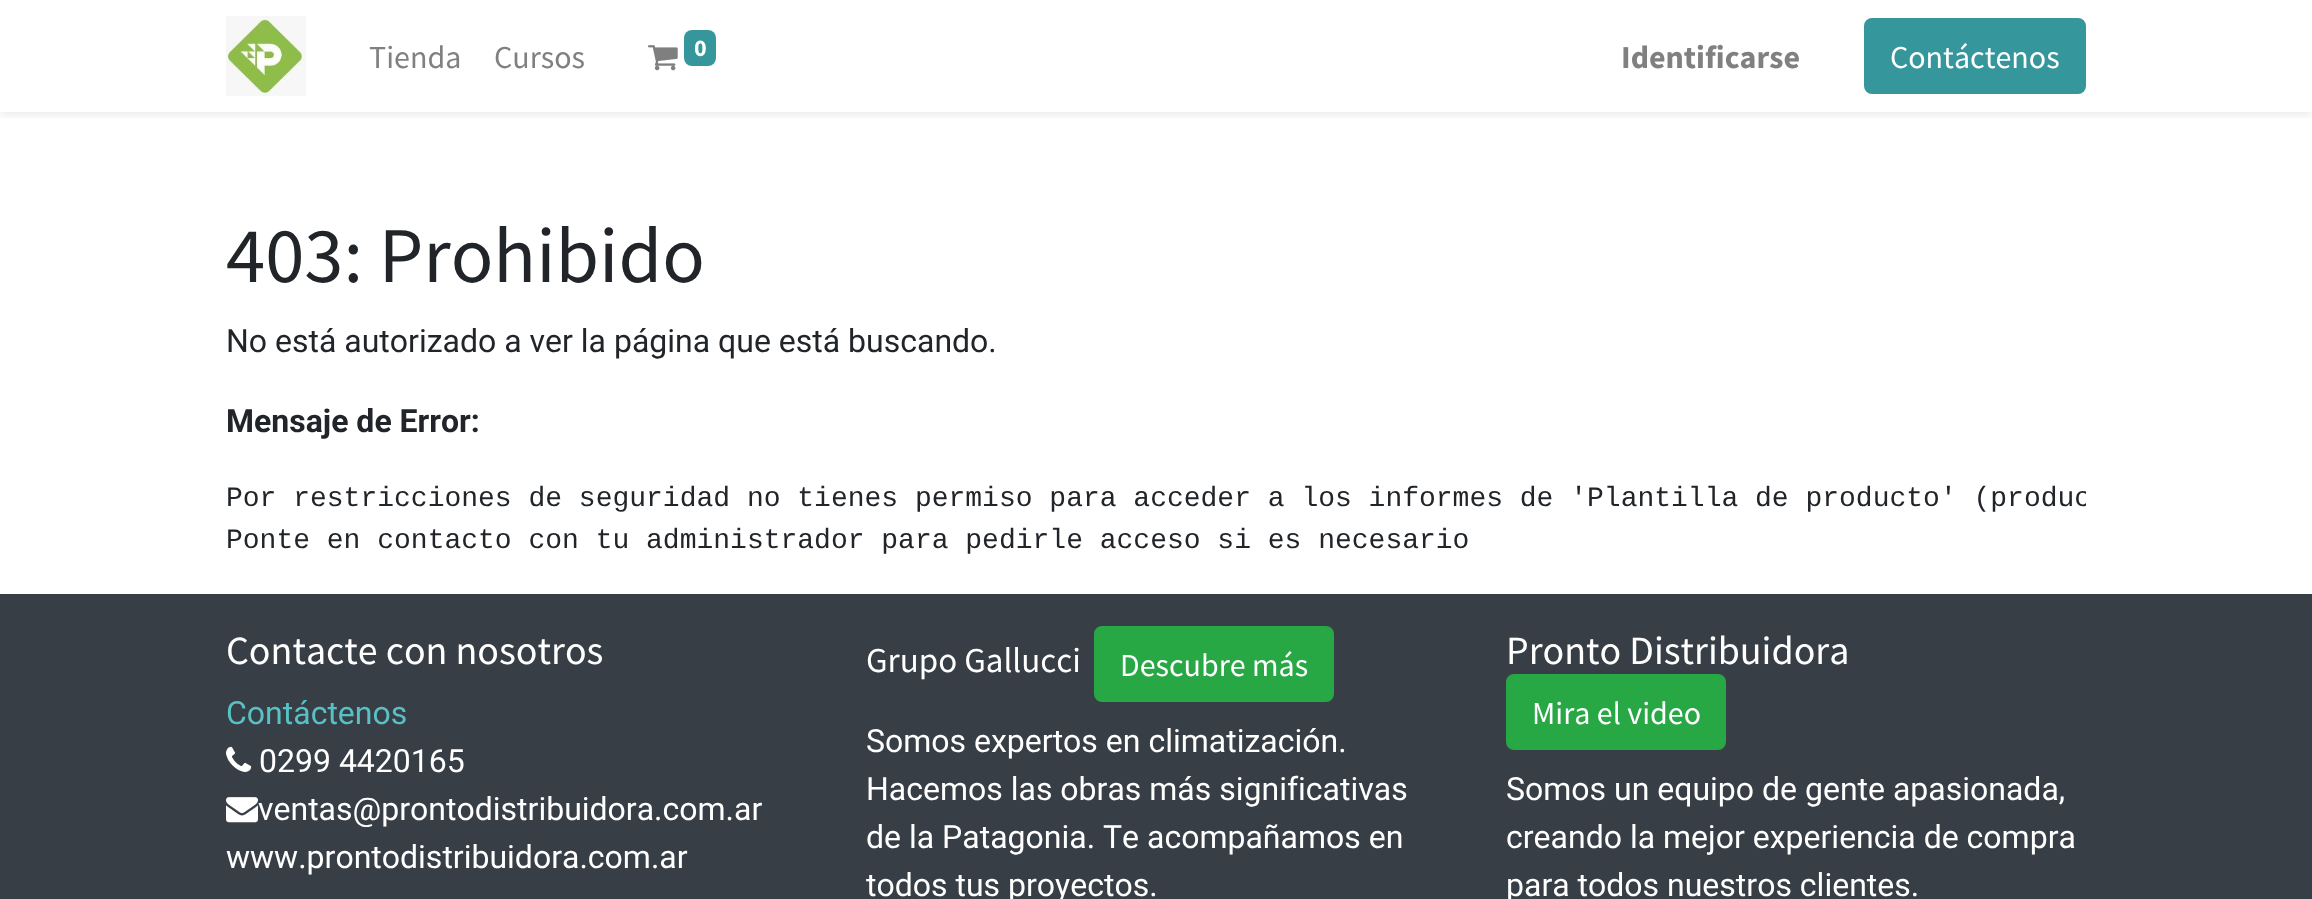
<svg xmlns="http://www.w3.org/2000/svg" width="2312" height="899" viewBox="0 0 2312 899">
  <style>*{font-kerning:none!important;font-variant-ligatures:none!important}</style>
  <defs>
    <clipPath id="clip1"><rect x="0" y="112" width="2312" height="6"/></clipPath>
    <clipPath id="clip2"><rect x="226" y="478" width="1860" height="84"/></clipPath>
  </defs>
  <rect width="100%" height="100%" fill="rgb(255,255,255)"/>
  <g clip-path="url(#clip1)">
    <rect x="0" y="4" width="2312" height="112" fill="rgba(0,0,0,0.07)" filter="blur(4px)"/>
  </g>
  <image x="226" y="16" width="80" height="80" href="pic1.png"/>
  <g font-family="Source Sans Pro" font-size="32" fill="rgb(128,128,128)">
    <text x="369" y="68">Tienda</text>
    <text x="494" y="68">Cursos</text>
  </g>
  <image x="648" y="45" width="30" height="26" href="pic2.png"/>
  <rect x="684" y="30" width="32" height="36" rx="8" fill="rgb(53,151,156)"/>
  <text x="694" y="56" font-family="Source Sans Pro" font-size="24" font-weight="bold" fill="rgb(255,255,255)">0</text>
  <text x="1621" y="68" font-family="Source Sans Pro" font-size="32" font-weight="bold" fill="rgb(128,128,128)">Identificarse</text>
  <rect x="1865" y="19" width="220" height="74" rx="7" fill="rgb(53,151,156)" stroke="rgb(53,151,156)" stroke-width="2"/>
  <text x="1890" y="68" font-family="Source Sans Pro" font-size="32" fill="rgb(255,255,255)">Contáctenos</text>
  <text x="226" y="282" font-family="Source Sans Pro" font-size="78.75" fill="rgb(33,37,41)">403: Prohibido</text>
  <text x="226" y="352" font-family="Roboto" font-size="32" fill="rgb(33,37,41)">No está autorizado a ver la página que está buscando.</text>
  <text x="226" y="432" font-family="Roboto" font-size="32" font-weight="bold" fill="rgb(33,37,41)">Mensaje de Error:</text>
  <g clip-path="url(#clip2)">
    <text x="226" y="506" font-family="Liberation Mono" font-size="28" fill="rgb(33,37,41)">Por restricciones de seguridad no tienes permiso para acceder a los informes de 'Plantilla de producto' (produc</text>
  </g>
  <text x="226" y="548" font-family="Liberation Mono" font-size="28" fill="rgb(33,37,41)">Ponte en contacto con tu administrador para pedirle acceso si es necesario</text>
  <rect x="0" y="594" width="2312" height="305" fill="rgb(56,62,69)"/>
  <text x="226" y="664" font-family="Source Sans Pro" font-size="40" fill="rgb(255,255,255)">Contacte con nosotros</text>
  <text x="226" y="724" font-family="Roboto" font-size="32" fill="rgb(87,193,198)">Contáctenos</text>
  <image x="226" y="746" width="26" height="26" href="pic3.png"/>
  <text x="259" y="772" font-family="Roboto" font-size="32" fill="rgb(255,255,255)">0299 4420165</text>
  <image x="226" y="797" width="32" height="26" href="pic4.png"/>
  <g font-family="Roboto" font-size="32" fill="rgb(255,255,255)">
    <text x="258" y="820">ventas@prontodistribuidora.com.ar</text>
    <text x="226" y="868">www.prontodistribuidora.com.ar</text>
  </g>
  <text x="866" y="672" font-family="Source Sans Pro" font-size="35" fill="rgb(255,255,255)">Grupo Gallucci</text>
  <rect x="1095" y="627" width="238" height="74" rx="7" fill="rgb(40,167,69)" stroke="rgb(40,167,69)" stroke-width="2"/>
  <text x="1120" y="676" font-family="Source Sans Pro" font-size="32" fill="rgb(255,255,255)">Descubre más</text>
  <g font-family="Roboto" font-size="32" fill="rgb(255,255,255)">
    <text>
      <tspan x="866" y="752">Somos expertos en climatización.</tspan>
      <tspan x="866" y="800">Hacemos las obras más significativas</tspan>
      <tspan x="866" y="848">de la Patagonia. Te acompañamos en</tspan>
      <tspan x="866" y="896">todos tus proyectos.</tspan>
    </text>
  </g>
  <text x="1506" y="664" font-family="Source Sans Pro" font-size="40" fill="rgb(255,255,255)">Pronto Distribuidora</text>
  <rect x="1507" y="675" width="218" height="74" rx="7" fill="rgb(40,167,69)" stroke="rgb(40,167,69)" stroke-width="2"/>
  <text x="1532" y="724" font-family="Source Sans Pro" font-size="32" fill="rgb(255,255,255)">Mira el video</text>
  <g font-family="Roboto" font-size="32" fill="rgb(255,255,255)">
    <text>
      <tspan x="1506" y="800">Somos un equipo de gente apasionada,</tspan>
      <tspan x="1506" y="848">creando la mejor experiencia de compra</tspan>
      <tspan x="1506" y="896">para todos nuestros clientes.</tspan>
    </text>
  </g>
</svg>
